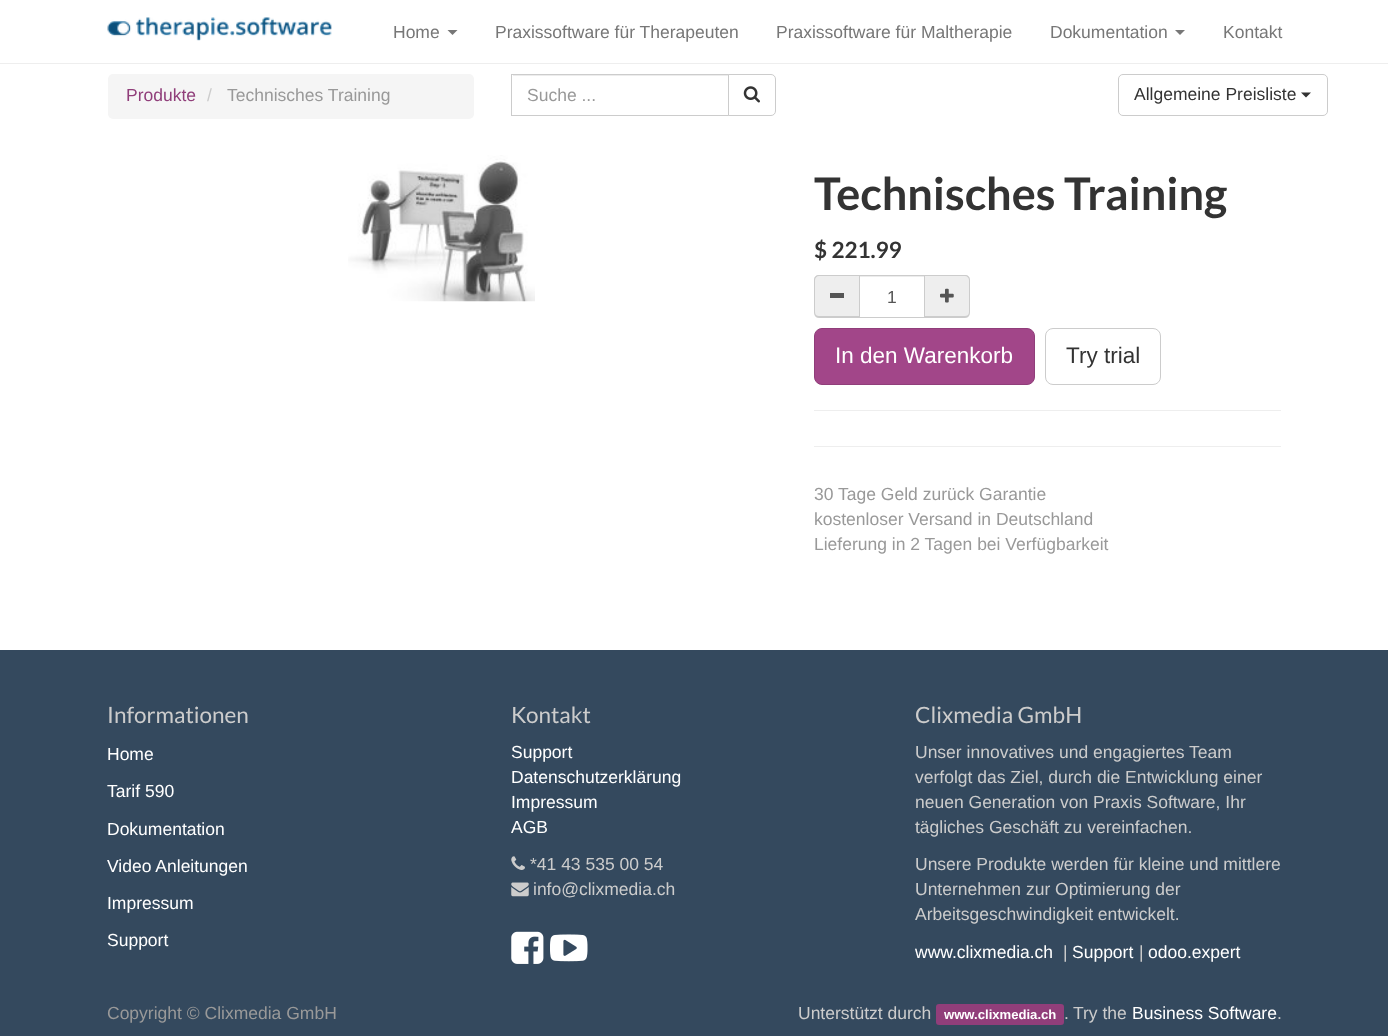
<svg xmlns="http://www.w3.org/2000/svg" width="1388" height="1036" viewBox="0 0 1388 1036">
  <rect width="100%" height="100%" fill="rgb(255,255,255)"/>
  <rect x="0" y="63" width="1388" height="1" fill="rgb(238,238,238)"/>
  <image x="107" y="17" width="225" height="24" href="pic1.png"/>
  <text x="393" y="38" font-family="Liberation Sans" font-size="17.5" fill="rgb(119,119,119)">Home</text>
  <path d="M447.5 30H457.5L452.5 35Z" fill="rgb(119,119,119)"/>
  <g font-family="Liberation Sans" font-size="17.5" fill="rgb(119,119,119)">
    <text x="495" y="38">Praxissoftware für Therapeuten</text>
    <text x="776" y="38">Praxissoftware für Maltherapie</text>
    <text x="1050" y="38">Dokumentation</text>
  </g>
  <path d="M1175 30H1185L1180 35Z" fill="rgb(119,119,119)"/>
  <text x="1223" y="38" font-family="Liberation Sans" font-size="17.5" fill="rgb(119,119,119)">Kontakt</text>
  <rect x="108" y="74" width="366" height="45" rx="5" fill="rgb(245,245,245)"/>
  <text x="126" y="101" font-family="Liberation Sans" font-size="17.5" fill="rgb(144,62,122)">Produkte</text>
  <text x="207" y="101" font-family="Liberation Sans" font-size="17.5" fill="rgb(204,204,204)">/</text>
  <text x="227" y="101" font-family="Liberation Sans" font-size="17.5" fill="rgb(153,153,153)">Technisches Training</text>
  <rect x="513" y="75" width="215" height="1" fill="rgb(236,236,236)"/>
  <rect x="511.5" y="74.5" width="217" height="41" fill="none" stroke="rgb(204,204,204)"/>
  <text x="527" y="101" font-family="Liberation Sans" font-size="17.5" fill="rgb(153,153,153)">Suche ...</text>
  <path d="M728.5 74.5H771C773.5 74.5 775.5 76.5 775.5 79V111C775.5 113.5 773.5 115.5 771 115.5H728.5Z" fill="rgb(255,255,255)" stroke="rgb(204,204,204)"/>
  <image x="743" y="86" width="17" height="17" href="pic2.png"/>
  <rect x="1118.5" y="74.5" width="209" height="41" rx="4.5" fill="none" stroke="rgb(204,204,204)"/>
  <text x="1134" y="100" font-family="Liberation Sans" font-size="17.5" fill="rgb(51,51,51)">Allgemeine Preisliste</text>
  <path d="M1301 92.5H1311L1306 97.5Z" fill="rgb(51,51,51)"/>
  <image x="348" y="155" width="187" height="147" href="pic3.png"/>
  <text x="814" y="210" font-family="Lato" font-size="45" font-weight="bold" fill="rgb(51,51,51)">Technisches Training</text>
  <text x="814" y="258" font-family="Lato" font-size="22.5" font-weight="bold" fill="rgb(51,51,51)">$ 221.99</text>
  <path d="M819 275H859V318H819C816 318 814 316 814 313V280C814 277 816 275 819 275Z" fill="rgb(238,238,238)"/>
  <path d="M819 275H859V318H819C816 318 814 315 814 312V280C814 277 816 275 819 275ZM819 276H859V316H819C817 316 815 315 815 312V280C815 278 817 276 819 276Z" fill="rgb(204,204,204)" fill-rule="evenodd"/>
  <rect x="830" y="293" width="14" height="5" fill="rgb(85,85,85)"/>
  <rect x="860" y="276" width="64" height="1" fill="rgb(236,236,236)"/>
  <rect x="859.5" y="275.5" width="65" height="42" fill="none" stroke="rgb(204,204,204)"/>
  <text x="887" y="303" font-family="Liberation Sans" font-size="17.5" fill="rgb(85,85,85)">1</text>
  <path d="M925 275H965C968 275 970 277 970 280V313C970 316 968 318 965 318H925Z" fill="rgb(238,238,238)"/>
  <path d="M925 275H965C968 275 970 277 970 280V312C970 315 968 318 965 318H925ZM925 276H965C967 276 969 278 969 280V312C969 315 967 316 965 316H925Z" fill="rgb(204,204,204)" fill-rule="evenodd"/>
  <image x="940" y="288" width="14" height="15" href="pic4.png"/>
  <rect x="814.5" y="328.5" width="220" height="56" rx="7.5" fill="rgb(162,70,137)" stroke="rgb(144,62,122)"/>
  <text x="835" y="363" font-family="Liberation Sans" font-size="22.5" fill="rgb(255,255,255)">In den Warenkorb</text>
  <rect x="1045.5" y="328.5" width="115" height="56" rx="7.5" fill="none" stroke="rgb(204,204,204)"/>
  <text x="1066" y="363" font-family="Liberation Sans" font-size="22.5" fill="rgb(51,51,51)">Try trial</text>
  <rect x="814" y="410" width="467" height="1" fill="rgb(238,238,238)"/>
  <rect x="814" y="446" width="467" height="1" fill="rgb(238,238,238)"/>
  <g font-family="Liberation Sans" font-size="17.5" fill="rgb(153,153,153)">
    <text>
      <tspan x="814" y="500">30 Tage Geld zurück Garantie</tspan>
      <tspan x="814" y="525">kostenloser Versand in Deutschland</tspan>
      <tspan x="814" y="550">Lieferung in 2 Tagen bei Verfügbarkeit</tspan>
    </text>
  </g>
  <rect x="0" y="650" width="1388" height="386" fill="rgb(52,73,94)"/>
  <text x="107" y="723" font-family="Lato" font-size="22.5" fill="rgb(204,204,204)">Informationen</text>
  <g font-family="Liberation Sans" font-size="17.5" fill="rgb(255,255,255)">
    <text x="107" y="760">Home</text>
    <text x="107" y="797">Tarif 590</text>
    <text x="107" y="835">Dokumentation</text>
    <text x="107" y="872">Video Anleitungen</text>
    <text x="107" y="909">Impressum</text>
    <text x="107" y="946">Support</text>
  </g>
  <text x="511" y="723" font-family="Lato" font-size="22.5" fill="rgb(204,204,204)">Kontakt</text>
  <g font-family="Liberation Sans" font-size="17.5" fill="rgb(255,255,255)">
    <text>
      <tspan x="511" y="758">Support</tspan>
      <tspan x="511" y="783">Datenschutzerklärung</tspan>
      <tspan x="511" y="808">Impressum</tspan>
      <tspan x="511" y="833">AGB</tspan>
    </text>
  </g>
  <image x="511" y="856" width="14" height="14" href="pic5.png"/>
  <text x="530" y="870" font-family="Liberation Sans" font-size="17.5" fill="rgb(204,204,204)">*41 43 535 00 54</text>
  <image x="511" y="882" width="18" height="15" href="pic6.png"/>
  <text x="533" y="895" font-family="Liberation Sans" font-size="17.5" fill="rgb(204,204,204)">info@clixmedia.ch</text>
  <image x="511" y="931" width="33" height="33" href="pic7.png"/>
  <image x="550" y="934" width="38" height="28" href="pic8.png"/>
  <text x="915" y="723" font-family="Lato" font-size="22.5" fill="rgb(204,204,204)">Clixmedia GmbH</text>
  <g font-family="Liberation Sans" font-size="17.5" fill="rgb(204,204,204)">
    <text>
      <tspan x="915" y="758">Unser innovatives und engagiertes Team</tspan>
      <tspan x="915" y="783">verfolgt das Ziel, durch die Entwicklung einer</tspan>
      <tspan x="915" y="808">neuen Generation von Praxis Software, Ihr</tspan>
      <tspan x="915" y="833">tägliches Geschäft zu vereinfachen.</tspan>
    </text>
    <text>
      <tspan x="915" y="870">Unsere Produkte werden für kleine und mittlere</tspan>
      <tspan x="915" y="895">Unternehmen zur Optimierung der</tspan>
      <tspan x="915" y="920">Arbeitsgeschwindigkeit entwickelt.</tspan>
    </text>
  </g>
  <text x="915" y="958" font-family="Liberation Sans" font-size="17.5" fill="rgb(255,255,255)">www.clixmedia.ch</text>
  <text x="1063" y="958" font-family="Liberation Sans" font-size="17.5" fill="rgb(204,204,204)">|</text>
  <text x="1072" y="958" font-family="Liberation Sans" font-size="17.5" fill="rgb(255,255,255)">Support</text>
  <text x="1139" y="958" font-family="Liberation Sans" font-size="17.5" fill="rgb(204,204,204)">|</text>
  <text x="1148" y="958" font-family="Liberation Sans" font-size="17.5" fill="rgb(255,255,255)">odoo.expert</text>
  <text x="107" y="1019" font-family="Liberation Sans" font-size="17.5" fill="rgb(153,153,153)">Copyright © Clixmedia GmbH</text>
  <text x="798" y="1019" font-family="Liberation Sans" font-size="17.5" fill="rgb(204,204,204)">Unterstützt durch</text>
  <rect x="936" y="1004" width="128" height="21" rx="3" fill="rgb(145,62,122)"/>
  <text x="944" y="1019" font-family="Liberation Sans" font-size="13.1" font-weight="bold" fill="rgb(255,255,255)">www.clixmedia.ch</text>
  <g font-family="Liberation Sans" font-size="17.5" fill="rgb(204,204,204)">
    <text x="1064" y="1019">.</text>
    <text x="1073" y="1019">Try the</text>
  </g>
  <text x="1132" y="1019" font-family="Liberation Sans" font-size="17.5" fill="rgb(255,255,255)">Business Software</text>
  <text x="1277" y="1019" font-family="Liberation Sans" font-size="17.5" fill="rgb(204,204,204)">.</text>
</svg>
